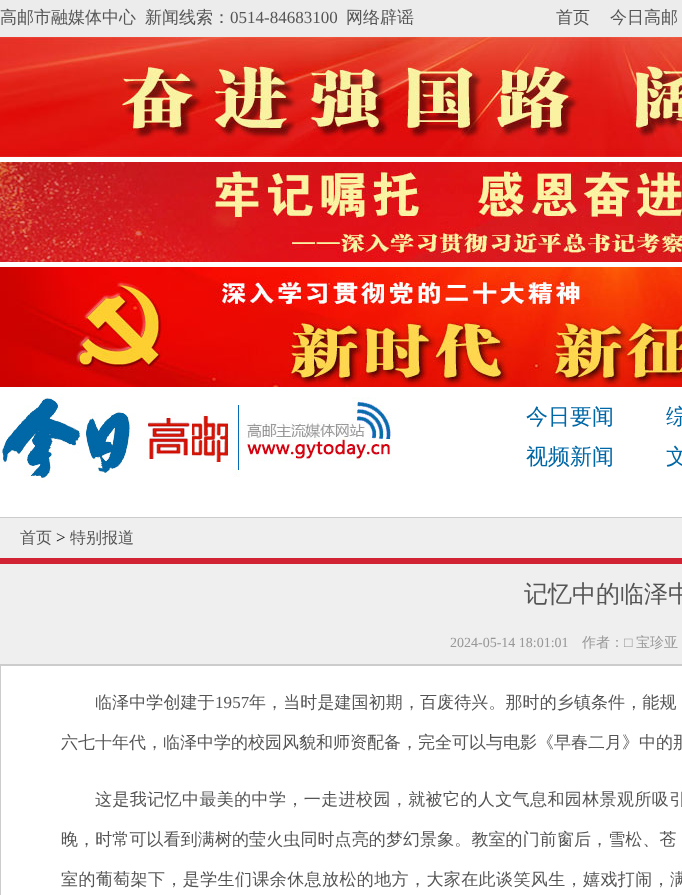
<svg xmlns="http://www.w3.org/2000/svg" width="682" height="895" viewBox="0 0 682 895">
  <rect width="100%" height="100%" fill="rgb(255,255,255)"/>
  <rect x="0" y="0" width="682" height="37" fill="rgb(236,236,236)"/>
  <g font-family="WenQuanYi Zen Hei" font-size="17" font-weight="500" fill="rgb(85,85,85)">
    <text x="0" y="23">高邮市融媒体中心</text>
    <text x="145" y="23">新闻线索：</text>
  </g>
  <text x="230" y="23" font-family="Liberation Serif" font-size="17" fill="rgb(85,85,85)">0514-84683100</text>
  <g font-family="WenQuanYi Zen Hei" font-size="17" font-weight="500" fill="rgb(85,85,85)">
    <text x="346" y="23">网络辟谣</text>
    <text x="556" y="23">首页</text>
    <text x="610" y="23">今日高邮</text>
  </g>
  <image x="0" y="37" width="682" height="120" href="pic1.png"/>
  <image x="0" y="162" width="682" height="100" href="pic2.png"/>
  <image x="0" y="267" width="682" height="120" href="pic3.png"/>
  <image x="0" y="397" width="392" height="85" href="pic4.png"/>
  <g font-family="WenQuanYi Zen Hei" font-size="22" font-weight="500" fill="rgb(0,103,166)">
    <text x="526" y="424">今日要闻</text>
    <text x="666" y="424">综</text>
    <text x="526" y="464">视频新闻</text>
    <text x="666" y="464">文</text>
  </g>
  <rect x="0" y="518" width="682" height="40" fill="rgb(239,239,239)"/>
  <rect x="0" y="517" width="682" height="1" fill="rgb(204,204,204)"/>
  <text x="20" y="543" font-family="WenQuanYi Zen Hei" font-size="16" font-weight="500" fill="rgb(85,85,85)">首页</text>
  <text x="56" y="543" font-family="Liberation Serif" font-size="17" fill="rgb(0,0,0)">&gt;</text>
  <text x="70" y="543" font-family="WenQuanYi Zen Hei" font-size="16" font-weight="500" fill="rgb(85,85,85)">特别报道</text>
  <rect x="0" y="564" width="682" height="100" fill="rgb(239,239,239)"/>
  <rect x="0" y="558" width="682" height="6" fill="rgb(210,35,52)"/>
  <rect x="0" y="664" width="682" height="1" fill="rgb(204,204,204)"/>
  <text x="524" y="602" font-family="WenQuanYi Zen Hei" font-size="24" font-weight="500" fill="rgb(85,85,85)">记忆中的临泽中</text>
  <text x="450" y="647" font-family="Liberation Serif" font-size="14" fill="rgb(151,151,151)">2024-05-14 18:01:01</text>
  <text x="582" y="647" font-family="WenQuanYi Zen Hei" font-size="14" font-weight="500" fill="rgb(151,151,151)">作者：</text>
  <text x="624" y="647" font-family="Liberation Serif" font-size="14" fill="rgb(151,151,151)">□</text>
  <text x="636" y="647" font-family="WenQuanYi Zen Hei" font-size="14" font-weight="500" fill="rgb(151,151,151)">宝珍亚</text>
  <rect x="0.5" y="665.5" width="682" height="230" fill="none" stroke="rgb(204,204,204)"/>
  <text x="95" y="708" font-family="WenQuanYi Zen Hei" font-size="17" font-weight="500" letter-spacing="0.1" fill="rgb(85,85,85)">临泽中学创建于</text>
  <text x="215" y="708" font-family="Liberation Serif" font-size="17" letter-spacing="0.1" fill="rgb(85,85,85)">1957</text>
  <text x="249" y="708" font-family="WenQuanYi Zen Hei" font-size="17" font-weight="500" letter-spacing="0.1" fill="rgb(85,85,85)">年，当时是建国初期，百废待兴。那时的乡镇条件，能规</text>
  <text x="61" y="748" font-family="WenQuanYi Zen Hei" font-size="17" font-weight="500" fill="rgb(85,85,85)">六七十年代，临泽中学的校园风貌和师资配备，完全可以与电影《早春二月》中的那</text>
  <text x="95" y="805" font-family="WenQuanYi Zen Hei" font-size="17" font-weight="500" letter-spacing="0.4" fill="rgb(85,85,85)">这是我记忆中最美的中学，一走进校园，就被它的人文气息和园林景观所吸引</text>
  <text x="61" y="845" font-family="WenQuanYi Zen Hei" font-size="17" font-weight="500" letter-spacing="0.1" fill="rgb(85,85,85)">晚，时常可以看到满树的莹火虫同时点亮的梦幻景象。教室的门前窗后，雪松、苍</text>
  <text x="61" y="885" font-family="WenQuanYi Zen Hei" font-size="17" font-weight="500" letter-spacing="0.4" fill="rgb(85,85,85)">室的葡萄架下，是学生们课余休息放松的地方，大家在此谈笑风生，嬉戏打闹，满</text>
</svg>
